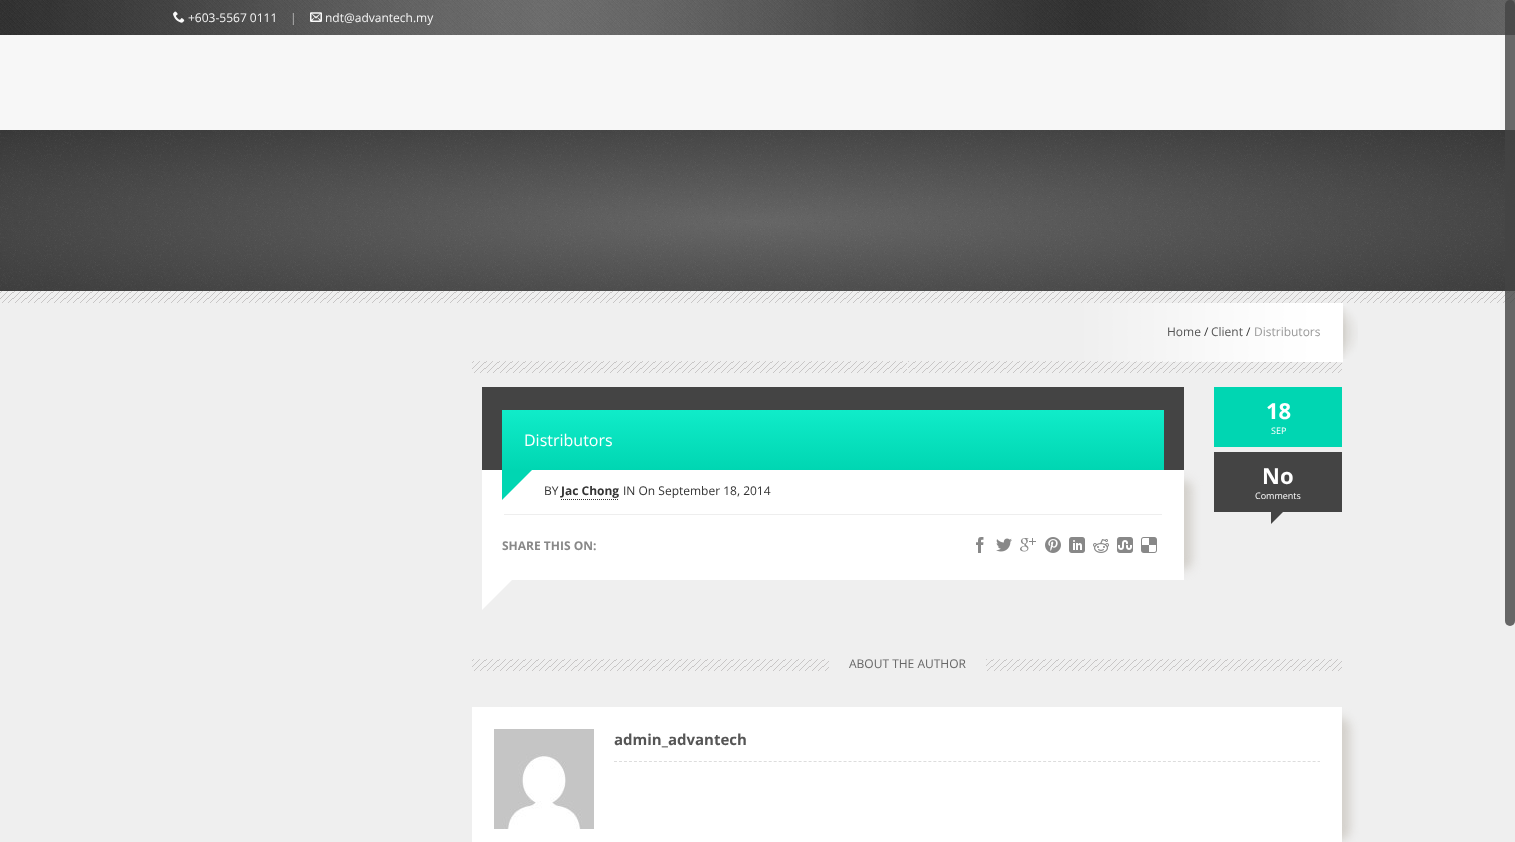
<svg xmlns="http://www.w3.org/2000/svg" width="1515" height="842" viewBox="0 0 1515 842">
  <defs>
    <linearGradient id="g1" gradientUnits="userSpaceOnUse" x1="833" y1="410" x2="833" y2="470"><stop offset="0" stop-color="rgb(16,236,201)"/><stop offset="1" stop-color="rgb(0,214,178)"/></linearGradient>
  </defs>
  <rect width="100%" height="100%" fill="rgb(239,239,239)"/>
  <rect x="0" y="0" width="1515" height="35" fill="rgb(56,56,56)"/>
  <image x="0" y="0" width="1515" height="35" href="pic1.png"/>
  <image x="173" y="11" width="12" height="12" href="pic2.png"/>
  <text x="188" y="22" font-family="Open Sans" font-size="12" fill="rgb(245,245,245)">+603-5567 0111</text>
  <text x="290" y="22" font-family="Open Sans" font-size="12" fill="rgb(187,187,187)">|</text>
  <image x="310" y="12" width="12" height="10" href="pic3.png"/>
  <text x="325" y="22" font-family="Open Sans" font-size="12" fill="rgb(245,245,245)">ndt@advantech.my</text>
  <rect x="0" y="35" width="1515" height="95" fill="rgb(247,247,247)"/>
  <image x="0" y="130" width="1515" height="161" href="pic4.png"/>
  <image x="0" y="291" width="1515" height="12" href="pic5.png"/>
  <image x="472" y="361" width="870" height="12" href="pic8.png"/>
  <image x="1084" y="303" width="259" height="59" href="pic6.png"/>
  <text x="1167" y="336" font-family="Open Sans" font-size="12" fill="rgb(85,85,85)">Home</text>
  <text x="1204" y="336" font-family="Open Sans" font-size="12" fill="rgb(51,51,51)">/</text>
  <text x="1211" y="336" font-family="Open Sans" font-size="12" fill="rgb(85,85,85)">Client</text>
  <text x="1246" y="336" font-family="Open Sans" font-size="12" fill="rgb(51,51,51)">/</text>
  <text x="1254" y="336" font-family="Open Sans" font-size="12" fill="rgb(153,153,153)">Distributors</text>
  <image x="1343" y="306" width="15" height="53" href="pic7.png"/>
  <rect x="907" y="357" width="1" height="17" fill="rgb(239,239,239)"/>
  <rect x="514" y="480" width="678" height="90" rx="9" fill="rgb(211,208,203)" filter="blur(5px)"/>
  <rect x="482" y="387" width="702" height="83" fill="rgb(68,68,68)"/>
  <rect x="502" y="410" width="662" height="60" fill="url(#g1)"/>
  <text x="524" y="446" font-family="Open Sans" font-size="16" fill="rgb(255,255,255)">Distributors</text>
  <rect x="482" y="470" width="702" height="110" fill="rgb(255,255,255)"/>
  <path d="M502 470H532L502 500Z" fill="rgb(0,214,178)"/>
  <text x="544" y="495" font-family="Open Sans" font-size="12" fill="rgb(51,51,51)">BY</text>
  <text x="561" y="495" font-family="Open Sans" font-size="12" font-weight="bold" fill="rgb(51,51,51)">Jac Chong</text>
  <path d="M561 499.5H619" fill="none" stroke="rgb(51,51,51)" stroke-dasharray="1 1"/>
  <text x="623" y="495" font-family="Open Sans" font-size="12" fill="rgb(51,51,51)">IN On September 18, 2014</text>
  <rect x="504" y="514" width="658" height="1" fill="rgb(238,238,238)"/>
  <text x="502" y="550" font-family="Open Sans" font-size="12" font-weight="bold" fill="rgb(136,136,136)">SHARE THIS ON:</text>
  <image x="976" y="537" width="8" height="16" href="pic9.png"/>
  <image x="996" y="538" width="16" height="14" href="pic10.png"/>
  <image x="1020" y="538" width="16" height="14" href="pic11.png"/>
  <image x="1045" y="537" width="16" height="16" href="pic12.png"/>
  <image x="1069" y="537" width="16" height="16" href="pic13.png"/>
  <image x="1093" y="539" width="16" height="14" href="pic14.png"/>
  <image x="1117" y="537" width="16" height="16" href="pic15.png"/>
  <image x="1141" y="537" width="16" height="16" href="pic16.png"/>
  <path d="M482 580H512L482 610Z" fill="rgb(255,255,255)"/>
  <rect x="1214" y="387" width="128" height="60" fill="rgb(0,214,178)"/>
  <text x="1266" y="419" font-family="Open Sans" font-size="22" font-weight="bold" fill="rgb(255,255,255)">18</text>
  <text x="1271" y="434" font-family="Open Sans" font-size="9" fill="rgb(255,255,255)">SEP</text>
  <rect x="1214" y="452" width="128" height="60" fill="rgb(68,68,68)"/>
  <text x="1262" y="484" font-family="Open Sans" font-size="22" font-weight="bold" fill="rgb(255,255,255)">No</text>
  <text x="1255" y="499" font-family="Open Sans" font-size="9" fill="rgb(255,255,255)">Comments</text>
  <path d="M1271 512H1283L1271 524Z" fill="rgb(68,68,68)"/>
  <image x="472" y="659" width="870" height="12" href="pic8.png"/>
  <rect x="829" y="659" width="157" height="12" fill="rgb(239,239,239)"/>
  <text x="849" y="668" font-family="Open Sans" font-size="12" fill="rgb(102,102,102)">ABOUT THE AUTHOR</text>
  <rect x="504" y="717" width="846" height="124" rx="12" fill="rgb(211,208,203)" filter="blur(5px)"/>
  <rect x="472" y="707" width="870" height="135" fill="rgb(255,255,255)"/>
  <image x="494" y="729" width="100" height="100" href="pic17.png"/>
  <path d="M614 761.5H1320" fill="none" stroke="rgb(221,221,221)" stroke-dasharray="3 1.99"/>
  <text x="614" y="745" font-family="Open Sans" font-size="15" font-weight="bold" fill="rgb(85,85,85)">admin_advantech</text>
  <rect x="1505" y="0" width="10" height="626" rx="5" fill="rgba(68,68,68,0.8)"/>
</svg>
